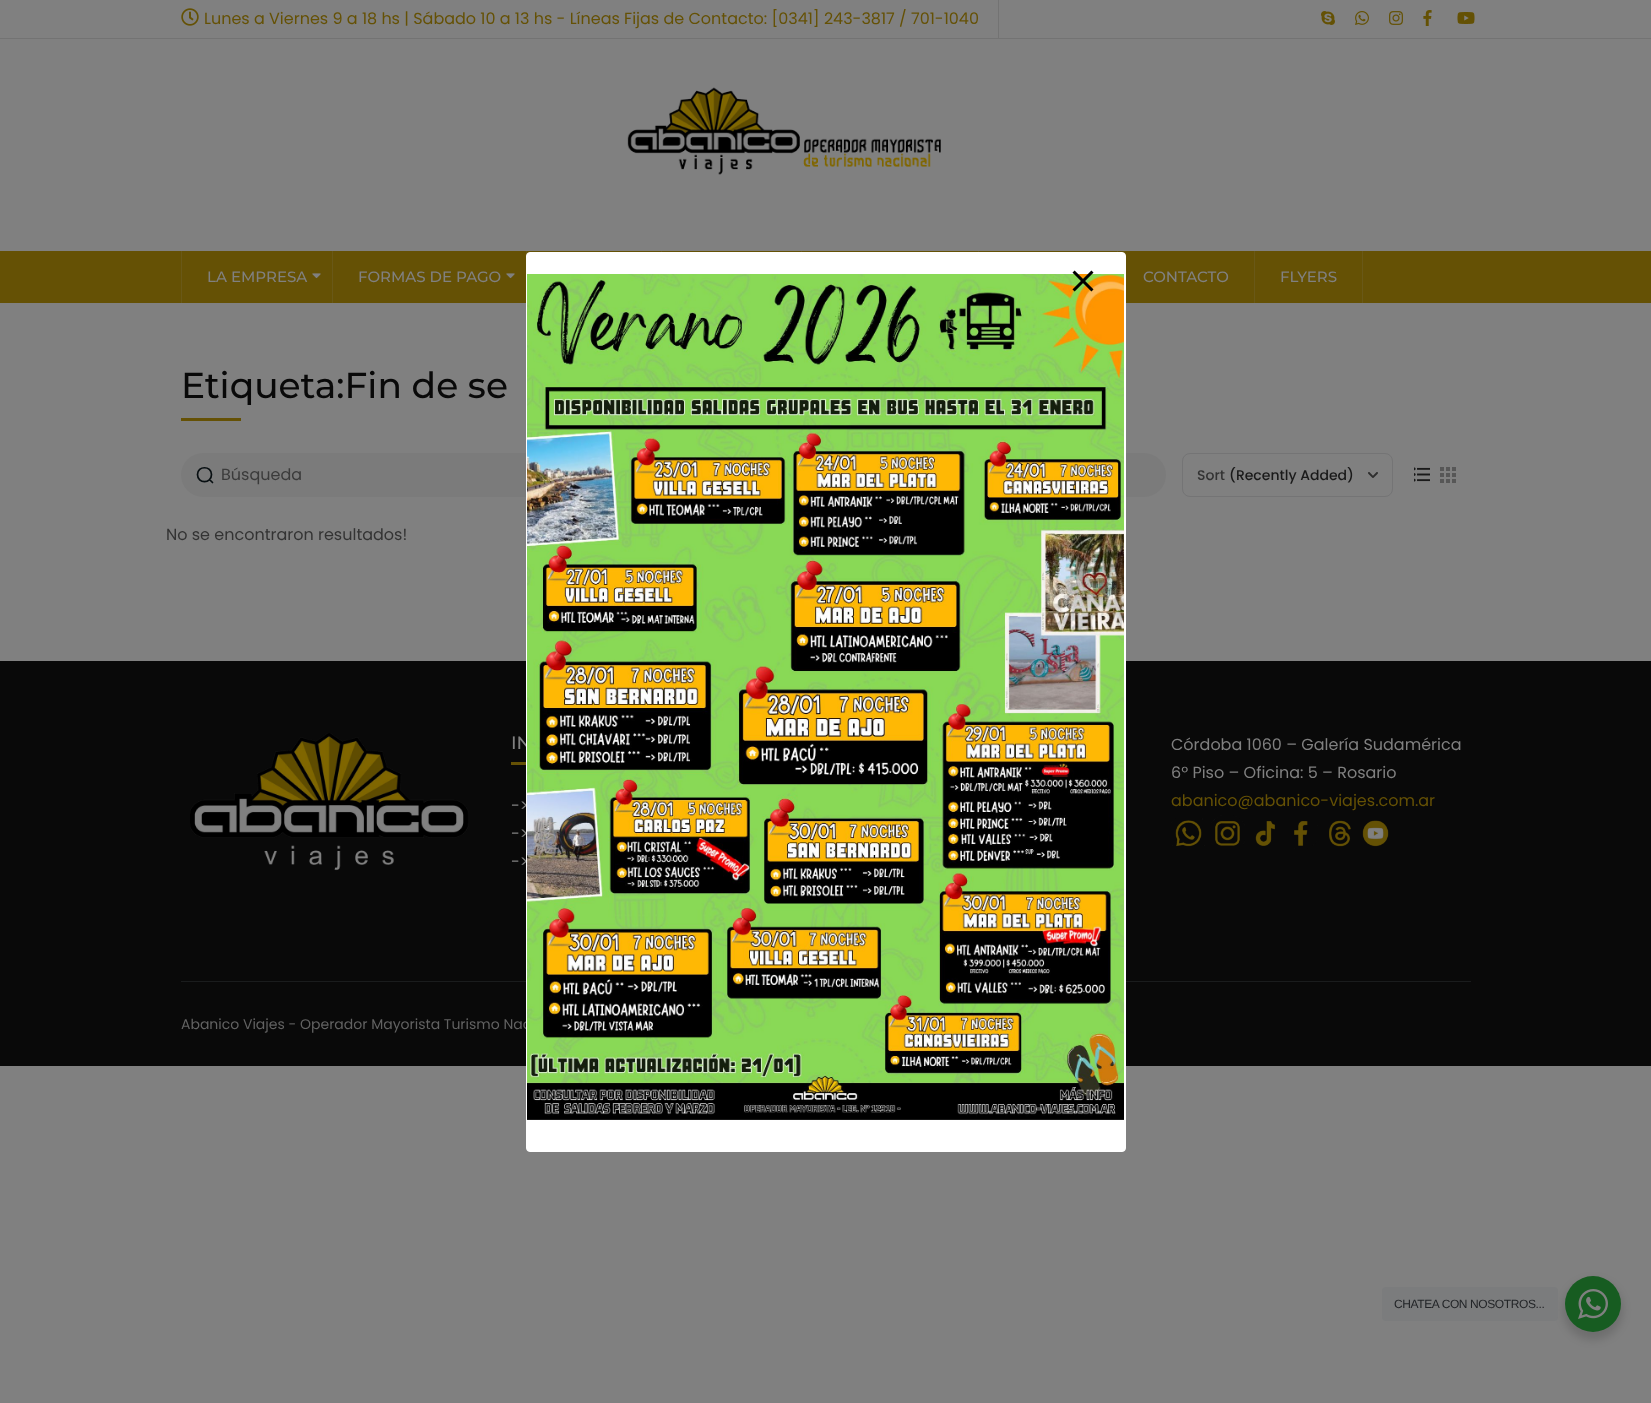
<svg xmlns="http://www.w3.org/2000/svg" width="1651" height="1403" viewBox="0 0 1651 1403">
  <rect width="100%" height="100%" fill="rgb(128,128,128)"/>
  <rect x="0" y="38" width="1651" height="1" fill="rgb(115,115,115)"/>
  <rect x="998" y="0" width="1" height="38" fill="rgb(115,115,115)"/>
  <image x="181" y="8" width="18" height="18" href="pic1.png"/>
  <text x="204" y="24" font-family="Poppins" font-size="16" fill="rgb(101,81,5)">Lunes a Viernes 9 a 18 hs | Sábado 10 a 13 hs - Líneas Fijas de Contacto: [0341] 243-3817 / 701-1040</text>
  <image x="1321" y="11" width="14" height="14" href="pic2.png"/>
  <image x="1355" y="11" width="14" height="14" href="pic3.png"/>
  <image x="1389" y="11" width="14" height="14" href="pic4.png"/>
  <image x="1423" y="10" width="9" height="16" href="pic5.png"/>
  <image x="1457" y="12" width="18" height="12" href="pic6.png"/>
  <image x="627" y="87" width="314" height="88" href="pic7.png"/>
  <rect x="0" y="251" width="1651" height="52" fill="rgb(101,81,5)"/>
  <rect x="661" y="251" width="1" height="1" fill="rgb(105,88,23)"/>
  <rect x="801" y="251" width="1" height="1" fill="rgb(105,88,23)"/>
  <rect x="978" y="251" width="1" height="1" fill="rgb(105,88,23)"/>
  <rect x="1117" y="251" width="1" height="1" fill="rgb(105,88,23)"/>
  <rect x="332" y="251" width="1" height="52" fill="rgb(105,88,23)"/>
  <rect x="181" y="251" width="1" height="52" fill="rgb(105,88,23)"/>
  <text x="207" y="282" font-family="Montserrat" font-size="15" font-weight="500" fill="rgb(128,128,128)">LA EMPRESA</text>
  <image x="312" y="273" width="9" height="6" href="pic8.png"/>
  <rect x="526" y="251" width="1" height="5" fill="rgb(105,88,23)"/>
  <text x="358" y="282" font-family="Montserrat" font-size="15" font-weight="500" fill="rgb(128,128,128)">FORMAS DE PAGO</text>
  <image x="506" y="273" width="9" height="6" href="pic8.png"/>
  <rect x="1254" y="251" width="1" height="52" fill="rgb(105,88,23)"/>
  <text x="1143" y="282" font-family="Montserrat" font-size="15" font-weight="500" fill="rgb(128,128,128)">CONTACTO</text>
  <rect x="1362" y="251" width="1" height="52" fill="rgb(105,88,23)"/>
  <text x="1280" y="282" font-family="Montserrat" font-size="15" font-weight="500" fill="rgb(128,128,128)">FLYERS</text>
  <text x="181" y="398" font-family="Montserrat" font-size="36" font-weight="500" fill="rgb(9,9,9)">Etiqueta:Fin de se</text>
  <rect x="181" y="418" width="60" height="3" fill="rgb(101,81,5)"/>
  <rect x="181" y="453" width="985" height="44" rx="22" fill="rgb(123,123,123)"/>
  <path d="M212.5 482.5L209.5 479.5M211.5 474.5C211.5 484 197.5 484 197.5 474.5C197.5 465.5 211.5 465.5 211.5 474.5Z" fill="none" stroke="rgb(8,15,18)" stroke-width="1.7" stroke-linecap="round" stroke-linejoin="round"/>
  <text x="221" y="480" font-family="Poppins" font-size="16" fill="rgb(59,59,59)">Búsqueda</text>
  <rect x="1182.5" y="453.5" width="210" height="43" rx="7.5" fill="none" stroke="rgb(116,116,117)"/>
  <text x="1197" y="480" font-family="Poppins" font-size="14" font-weight="500" fill="rgb(51,51,51)">Sort</text>
  <text x="1229" y="480" font-family="Poppins" font-size="14" font-weight="500" fill="rgb(26,26,26)">(Recently Added)</text>
  <image x="1368" y="472" width="10" height="6" href="pic9.png"/>
  <image x="1414" y="467" width="16" height="15" href="pic10.png"/>
  <image x="1440" y="467" width="16" height="16" href="pic11.png"/>
  <text x="166" y="540" font-family="Poppins" font-size="16" fill="rgb(51,51,51)">No se encontraron resultados!</text>
  <rect x="0" y="661" width="1651" height="405" fill="rgb(9,9,9)"/>
  <rect x="181" y="981" width="1290" height="1" fill="rgb(26,28,29)"/>
  <image x="190" y="733" width="279" height="138" href="pic12.png"/>
  <text x="511" y="749" font-family="Montserrat" font-size="18" font-weight="500" fill="rgb(128,128,128)">IN</text>
  <rect x="511" y="762" width="15" height="3" fill="rgb(101,81,5)"/>
  <g font-family="Poppins" font-size="16" fill="rgb(128,128,128)">
    <text>
      <tspan x="511" y="811">-&gt;</tspan>
      <tspan x="511" y="839">-&gt;</tspan>
      <tspan x="511" y="867">-&gt;</tspan>
    </text>
    <text>
      <tspan x="1171" y="750">Córdoba 1060 – Galería Sudamérica</tspan>
      <tspan x="1171" y="778">6º Piso – Oficina: 5 – Rosario</tspan>
    </text>
  </g>
  <text x="1171" y="806" font-family="Poppins" font-size="16" fill="rgb(101,81,5)">abanico@abanico-viajes.com.ar</text>
  <image x="1171" y="818" width="34" height="29" href="pic13.png"/>
  <image x="1211" y="815" width="34" height="31" href="pic14.png"/>
  <image x="1255" y="821" width="21" height="25" href="pic15.png"/>
  <image x="1294" y="821" width="24" height="28" href="pic16.png"/>
  <image x="1329" y="820" width="22" height="27" href="pic17.png"/>
  <image x="1362" y="820" width="27" height="27" href="pic18.png"/>
  <text x="181" y="1029" font-family="Poppins" font-size="14" fill="rgb(98,98,98)">Abanico Viajes - Operador Mayorista Turismo Nac</text>
  <rect x="526.5" y="252.5" width="599" height="899" rx="3.5" fill="rgb(255,255,255)" stroke="rgb(255,255,255)"/>
  <image x="527" y="274" width="597" height="846" href="pic20.png"/>
  <image x="1072" y="270" width="22" height="22" href="pic19.png"/>
  <rect x="1563" y="1280" width="60" height="60" rx="30" fill="rgba(0,0,0,0.14)" filter="blur(4px)"/>
  <rect x="1382" y="1287" width="176" height="34" rx="4" fill="rgb(123,124,125)"/>
  <text x="1394" y="1308" font-family="Liberation Sans" font-size="12" letter-spacing="-0.4" fill="rgb(34,36,39)">CHATEA CON NOSOTROS...</text>
  <circle cx="1593" cy="1304" r="28" fill="rgb(23,92,33)"/>
  <image x="1578" y="1289" width="30" height="30" href="pic21.png"/>
</svg>
